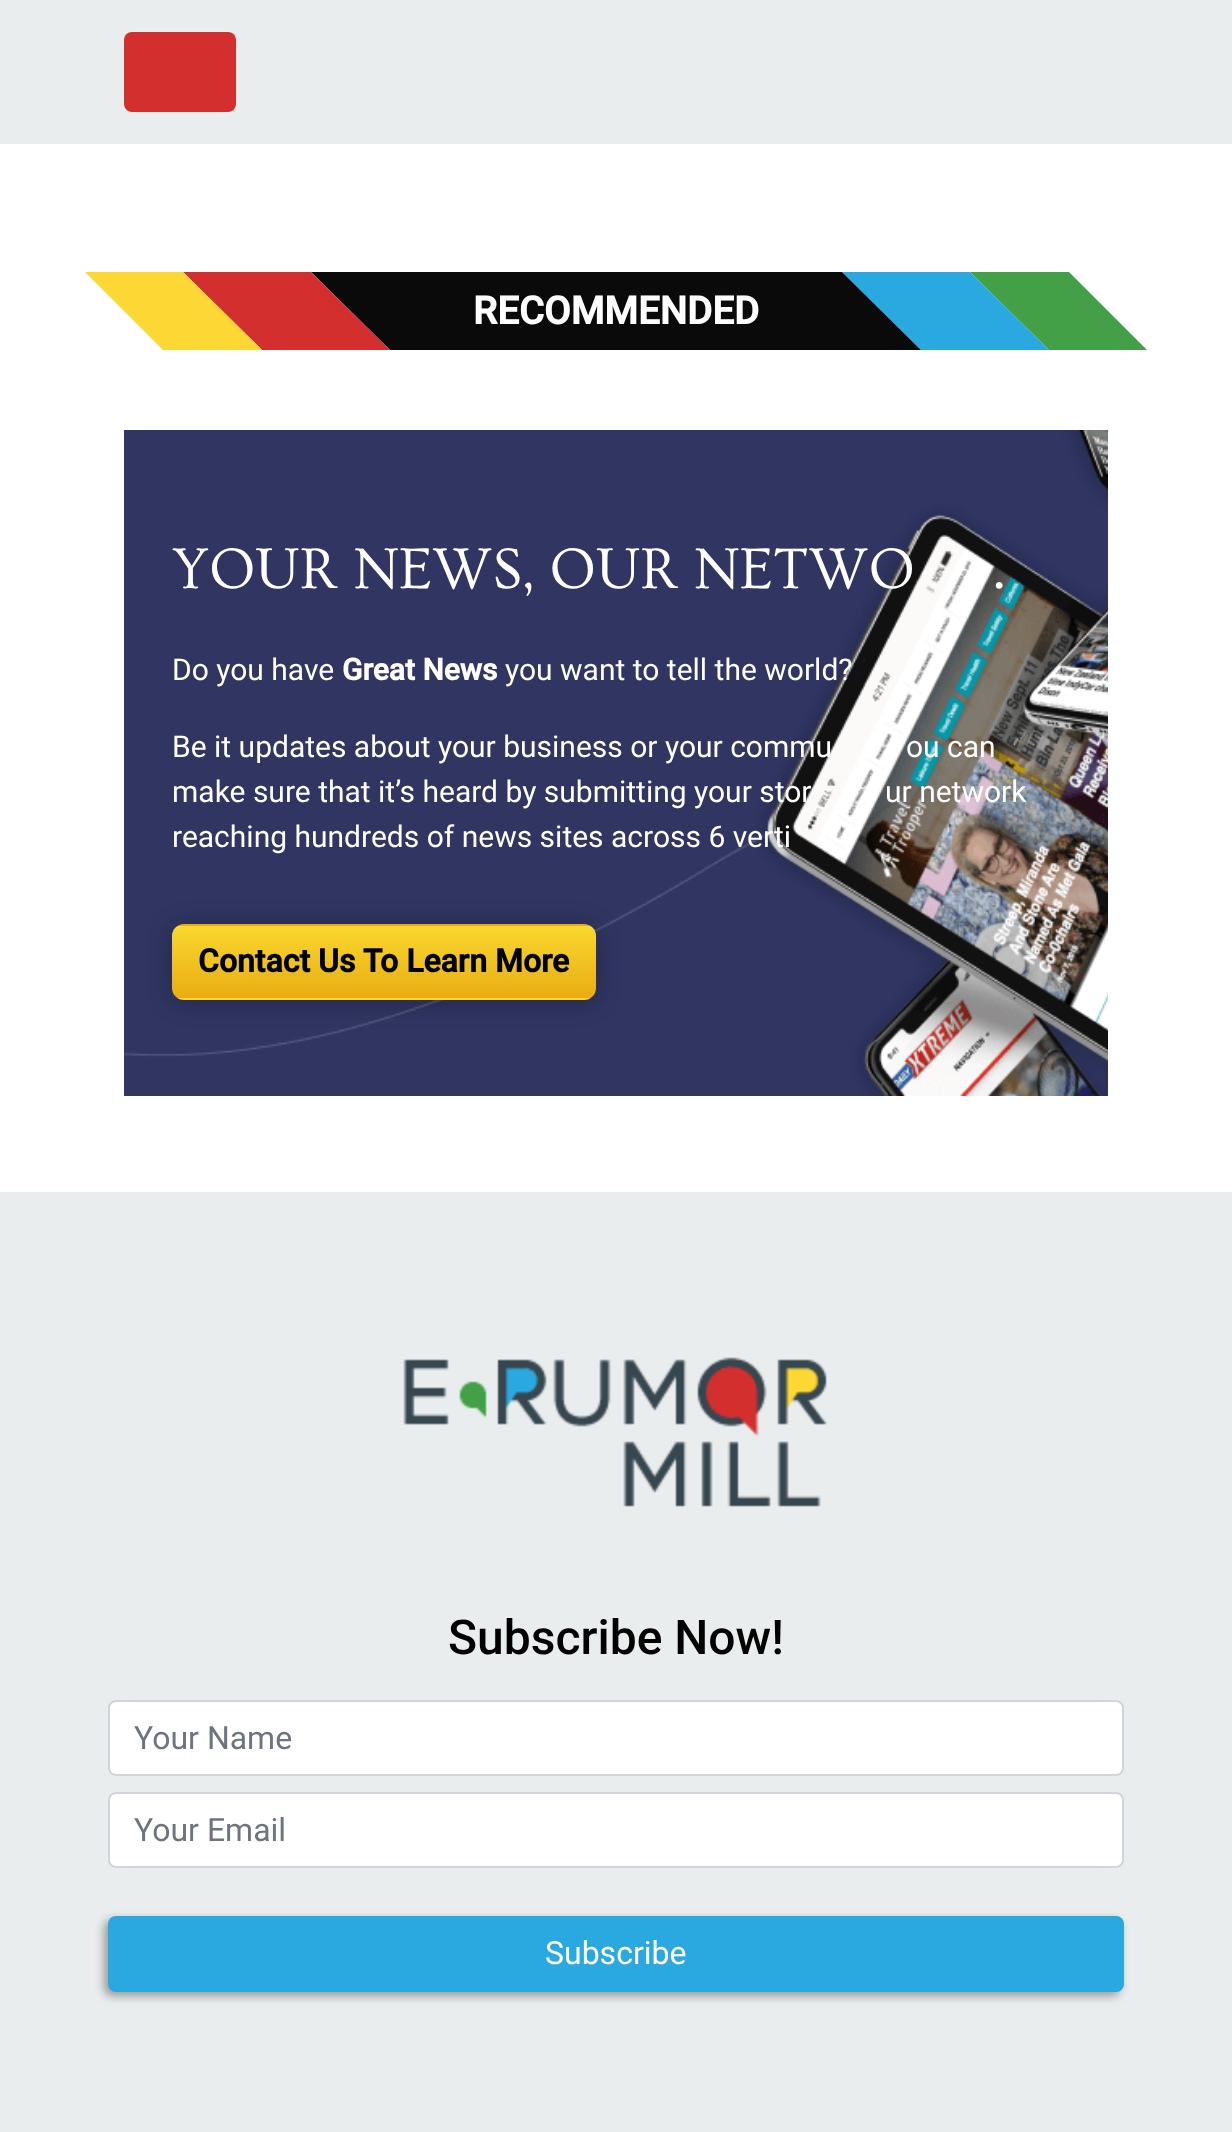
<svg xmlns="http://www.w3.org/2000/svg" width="1232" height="2132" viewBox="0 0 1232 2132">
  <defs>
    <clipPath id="clip1"><rect x="172" y="924" width="424" height="76" rx="12"/></clipPath>
    <linearGradient id="g1" gradientUnits="userSpaceOnUse" x1="384" y1="852" x2="384" y2="928"><stop offset="0.02" stop-color="rgb(249,216,47)"/><stop offset="0.96" stop-color="rgb(233,173,19)"/></linearGradient>
    <linearGradient id="g2" gradientUnits="userSpaceOnUse" x1="-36" y1="924" x2="-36" y2="1000"><stop offset="0.02" stop-color="rgb(249,216,47)"/><stop offset="0.96" stop-color="rgb(233,173,19)"/></linearGradient>
    <linearGradient id="g3" gradientUnits="userSpaceOnUse" x1="384" y1="924" x2="384" y2="1000"><stop offset="0.02" stop-color="rgb(249,216,47)"/><stop offset="0.96" stop-color="rgb(233,173,19)"/></linearGradient>
    <linearGradient id="g4" gradientUnits="userSpaceOnUse" x1="804" y1="924" x2="804" y2="1000"><stop offset="0.02" stop-color="rgb(249,216,47)"/><stop offset="0.96" stop-color="rgb(233,173,19)"/></linearGradient>
    <linearGradient id="g5" gradientUnits="userSpaceOnUse" x1="384" y1="996" x2="384" y2="1072"><stop offset="0.02" stop-color="rgb(249,216,47)"/><stop offset="0.96" stop-color="rgb(233,173,19)"/></linearGradient>
  </defs>
  <rect width="100%" height="100%" fill="rgb(255,255,255)"/>
  <rect x="0" y="0" width="1232" height="144" fill="rgb(234,237,237)"/>
  <rect x="124" y="32" width="112" height="80" rx="8" fill="rgb(211,47,47)"/>
  <path d="M970 272L1049 350H1147L1069 272Z" fill="rgb(67,160,71)"/>
  <path d="M842 272H970L1049 350H921Z" fill="rgb(41,169,224)"/>
  <path d="M311 272H842L921 350H390Z" fill="rgb(10,10,10)"/>
  <path d="M183 272H311L390 350H262Z" fill="rgb(211,47,47)"/>
  <path d="M85 272H183L262 350H163Z" fill="rgb(253,216,53)"/>
  <text x="473" y="324" font-family="Roboto" font-size="38.5" font-weight="bold" fill="rgb(255,255,255)">RECOMMENDED</text>
  <image x="124" y="430" width="984" height="666" href="pic1.png"/>
  <g font-family="Ovo" font-size="60" fill="rgb(255,255,255)">
    <text x="172" y="588">YOUR NEWS, OUR NETWO</text>
    <text x="992" y="588">.</text>
  </g>
  <text x="172" y="680" font-family="Roboto" font-size="30" fill="rgb(255,255,255)">Do you have</text>
  <text x="342" y="680" font-family="Roboto" font-size="30" font-weight="bold" fill="rgb(255,255,255)">Great News</text>
  <g font-family="Roboto" font-size="30" fill="rgb(255,255,255)">
    <text x="505" y="680">you want to tell the world?</text>
    <text x="172" y="757">Be it updates about your business or your commu</text>
    <text x="906" y="757">ou can</text>
    <text x="172" y="802">make sure that it’s heard by submitting your stor</text>
    <text x="885" y="802">ur network</text>
    <text x="172" y="847">reaching hundreds of news sites across 6 verti</text>
  </g>
  <rect x="172" y="926" width="424" height="76" rx="12" fill="rgba(0,0,0,0.25)" filter="blur(12px)"/>
  <g clip-path="url(#clip1)">
    <rect x="174" y="924" width="420" height="2" fill="url(#g1)"/>
    <rect x="172" y="926" width="2" height="72" fill="url(#g2)"/>
    <rect x="174" y="926" width="420" height="72" fill="url(#g3)"/>
    <rect x="594" y="926" width="2" height="72" fill="url(#g4)"/>
    <rect x="174" y="998" width="420" height="2" fill="url(#g5)"/>
  </g>
  <text x="198" y="972" font-family="Roboto" font-size="32" font-weight="bold" fill="rgb(0,0,0)">Contact Us To Learn More</text>
  <rect x="0" y="1192" width="1232" height="940" fill="rgb(234,237,237)"/>
  <image x="403" y="1357" width="424" height="150" href="pic2.png"/>
  <text x="448" y="1654" font-family="Roboto" font-size="48" font-weight="500" fill="rgb(0,0,0)">Subscribe Now!</text>
  <rect x="109" y="1701" width="1014" height="74" rx="7" fill="rgb(255,255,255)" stroke="rgb(206,212,218)" stroke-width="2"/>
  <text x="134" y="1749" font-family="Roboto" font-size="32" fill="rgb(108,117,125)">Your Name</text>
  <rect x="109" y="1793" width="1014" height="74" rx="7" fill="rgb(255,255,255)" stroke="rgb(206,212,218)" stroke-width="2"/>
  <text x="134" y="1841" font-family="Roboto" font-size="32" fill="rgb(108,117,125)">Your Email</text>
  <rect x="104" y="1920" width="1016" height="76" rx="8" fill="rgba(0,0,0,0.35)" filter="blur(5px)"/>
  <rect x="108" y="1916" width="1016" height="76" rx="8" fill="rgb(41,169,224)"/>
  <text x="545" y="1964" font-family="Roboto" font-size="32" fill="rgb(255,255,255)">Subscribe</text>
</svg>
